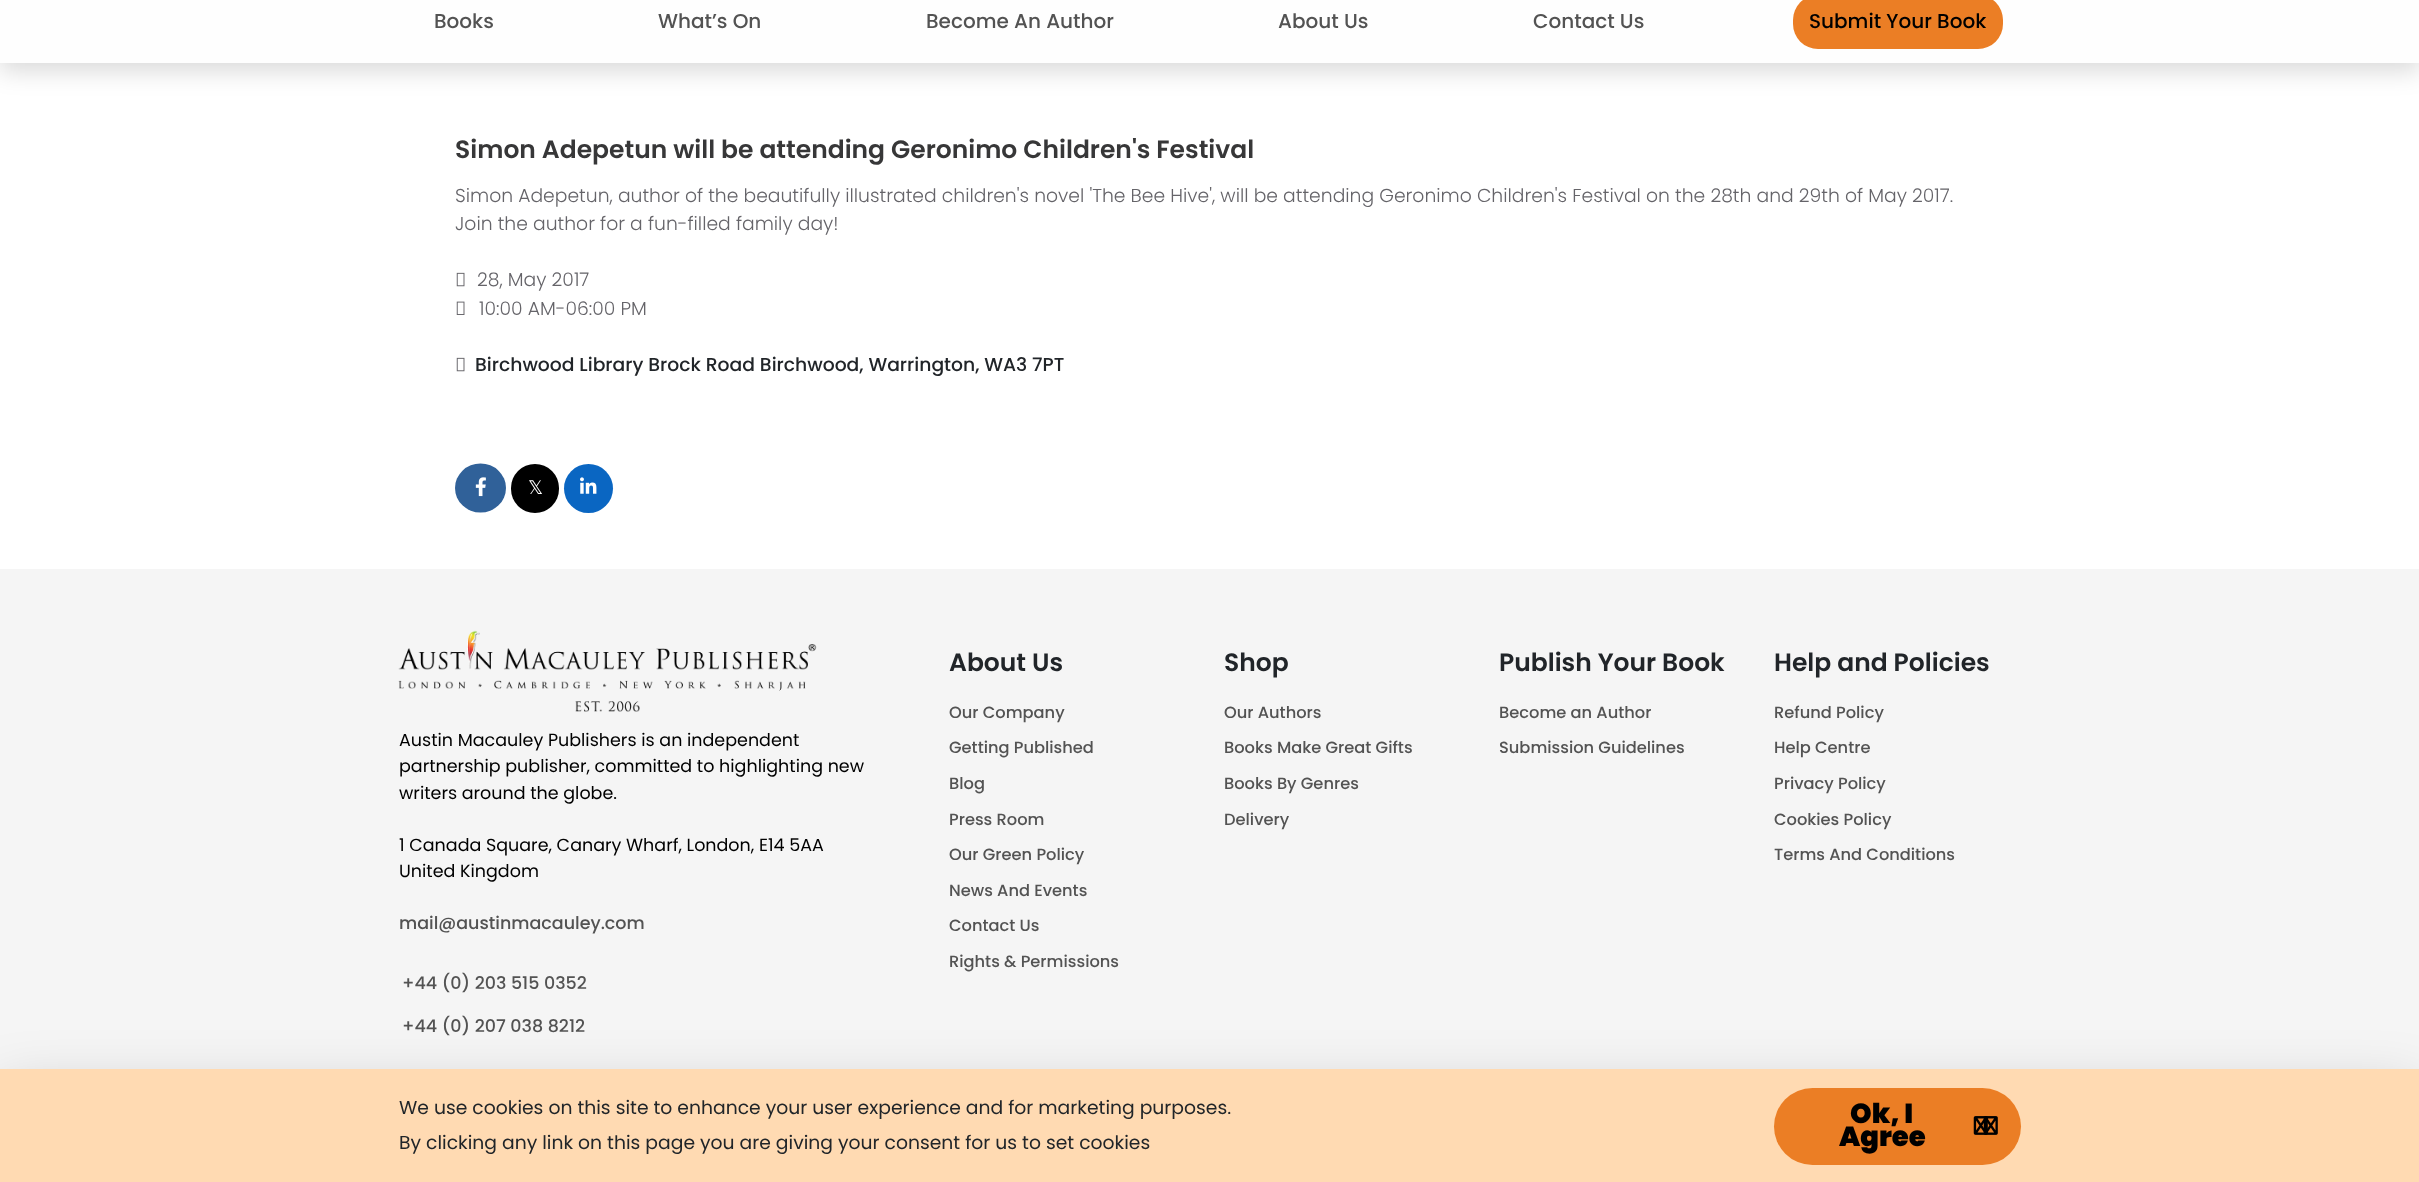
<svg xmlns="http://www.w3.org/2000/svg" width="2419" height="1182" viewBox="0 0 2419 1182">
  <rect width="100%" height="100%" fill="rgb(255,255,255)"/>
  <rect x="0" y="-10" width="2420" height="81" fill="rgba(0,0,0,0.15)" filter="blur(12.5px)"/>
  <rect x="0" y="0" width="2419" height="63" fill="rgb(254,254,254)"/>
  <g font-family="Poppins" font-size="20" font-weight="500" fill="rgb(83,83,83)">
    <text x="434" y="28">Books</text>
    <text x="658" y="28">What’s On</text>
    <text x="926" y="28">Become An Author</text>
    <text x="1278" y="28">About Us</text>
    <text x="1533" y="28">Contact Us</text>
  </g>
  <rect x="1793" y="-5" width="210" height="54" rx="25" fill="rgb(235,126,37)"/>
  <text x="1809" y="28" font-family="Poppins" font-size="20" font-weight="500" fill="rgb(0,0,0)">Submit Your Book</text>
  <text x="455" y="158" font-family="Poppins" font-size="25" font-weight="600" fill="rgb(55,55,56)">Simon Adepetun will be attending Geronimo Children's Festival</text>
  <g font-family="Poppins" font-size="18.75" font-weight="300" fill="rgb(101,100,105)">
    <text>
      <tspan x="455" y="202">Simon Adepetun, author of the beautifully illustrated children's novel 'The Bee Hive', will be attending Geronimo Children's Festival on the 28th and 29th of May 2017.</tspan>
      <tspan x="455" y="230">Join the author for a fun-filled family day!</tspan>
    </text>
  </g>
  <image x="456" y="272" width="9" height="15" href="pic1.png"/>
  <text x="477" y="286" font-family="Poppins" font-size="18.75" font-weight="300" fill="rgb(101,100,105)">28, May 2017</text>
  <image x="456" y="301" width="9" height="14" href="pic2.png"/>
  <text x="479" y="315" font-family="Poppins" font-size="18.75" font-weight="300" fill="rgb(101,100,105)">10:00 AM-06:00 PM</text>
  <image x="456" y="357" width="9" height="15" href="pic1.png"/>
  <text x="475" y="371" font-family="Poppins" font-size="18.75" font-weight="500" fill="rgb(33,37,41)">Birchwood Library Brock Road Birchwood, Warrington, WA3 7PT</text>
  <ellipse cx="480.5" cy="488" rx="25.5" ry="24.5" fill="rgb(48,97,153)"/>
  <image x="475" y="477" width="11" height="20" href="pic3.png"/>
  <rect x="511" y="464" width="48" height="49" rx="24" fill="rgb(0,0,0)"/>
  <text x="528" y="494" font-family="DejaVu Sans" font-size="18.75" fill="rgb(255,255,255)">𝕏</text>
  <circle cx="588.5" cy="488.5" r="24.5" fill="rgb(10,102,194)"/>
  <image x="580" y="477" width="17" height="17" href="pic4.png"/>
  <rect x="0" y="569" width="2419" height="500" fill="rgb(245,245,245)"/>
  <image x="398" y="630" width="419" height="82" href="pic5.png"/>
  <g font-family="Poppins" font-size="17.5" fill="rgb(0,0,0)">
    <text>
      <tspan x="399" y="746">Austin Macauley Publishers is an independent</tspan>
      <tspan x="399" y="772">partnership publisher, committed to highlighting new</tspan>
      <tspan x="399" y="799">writers around the globe.</tspan>
    </text>
    <text>
      <tspan x="399" y="851">1 Canada Square, Canary Wharf, London, E14 5AA</tspan>
      <tspan x="399" y="877">United Kingdom</tspan>
    </text>
  </g>
  <g font-family="Poppins" font-size="17.5" font-weight="500" fill="rgb(83,83,83)">
    <text x="399" y="929">mail@austinmacauley.com</text>
    <text x="402" y="989">+44 (0) 203 515 0352</text>
    <text x="402" y="1032">+44 (0) 207 038 8212</text>
  </g>
  <text x="949" y="671" font-family="Poppins" font-size="25" font-weight="600" fill="rgb(33,37,41)">About Us</text>
  <g font-family="Poppins" font-size="16.25" font-weight="500" fill="rgb(83,83,83)">
    <text x="949" y="718">Our Company</text>
    <text x="949" y="753">Getting Published</text>
    <text x="949" y="789">Blog</text>
    <text x="949" y="825">Press Room</text>
    <text x="949" y="860">Our Green Policy</text>
    <text x="949" y="896">News And Events</text>
    <text x="949" y="931">Contact Us</text>
    <text x="949" y="967">Rights &amp; Permissions</text>
  </g>
  <text x="1224" y="671" font-family="Poppins" font-size="25" font-weight="600" fill="rgb(33,37,41)">Shop</text>
  <g font-family="Poppins" font-size="16.25" font-weight="500" fill="rgb(83,83,83)">
    <text x="1224" y="718">Our Authors</text>
    <text x="1224" y="753">Books Make Great Gifts</text>
    <text x="1224" y="789">Books By Genres</text>
    <text x="1224" y="825">Delivery</text>
  </g>
  <text x="1499" y="671" font-family="Poppins" font-size="25" font-weight="600" fill="rgb(33,37,41)">Publish Your Book</text>
  <g font-family="Poppins" font-size="16.25" font-weight="500" fill="rgb(83,83,83)">
    <text x="1499" y="718">Become an Author</text>
    <text x="1499" y="753">Submission Guidelines</text>
  </g>
  <text x="1774" y="671" font-family="Poppins" font-size="25" font-weight="600" fill="rgb(33,37,41)">Help and Policies</text>
  <g font-family="Poppins" font-size="16.25" font-weight="500" fill="rgb(83,83,83)">
    <text x="1774" y="718">Refund Policy</text>
    <text x="1774" y="753">Help Centre</text>
    <text x="1774" y="789">Privacy Policy</text>
    <text x="1774" y="825">Cookies Policy</text>
    <text x="1774" y="860">Terms And Conditions</text>
  </g>
  <rect x="0" y="1088" width="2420" height="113" fill="rgba(0,0,0,0.18)" filter="blur(28px)"/>
  <rect x="0" y="1069" width="2419" height="113" fill="rgb(255,218,178)"/>
  <g font-family="Poppins" font-size="18.75" fill="rgb(33,37,41)">
    <text>
      <tspan x="399" y="1114">We use cookies on this site to enhance your user experience and for marketing purposes.</tspan>
      <tspan x="399" y="1149">By clicking any link on this page you are giving your consent for us to set cookies</tspan>
    </text>
  </g>
  <rect x="1774" y="1088" width="247" height="77" rx="38.5" fill="rgb(235,126,37)"/>
  <text x="1850" y="1123" font-family="Poppins" font-size="27.5" font-weight="900" fill="rgb(0,0,0)">Ok, I</text>
  <image x="1983" y="1116" width="15" height="19" href="pic7.png"/>
  <image x="1973" y="1116" width="15" height="19" href="pic6.png"/>
  <text x="1839" y="1146" font-family="Poppins" font-size="27.5" font-weight="900" fill="rgb(0,0,0)">Agree</text>
</svg>
